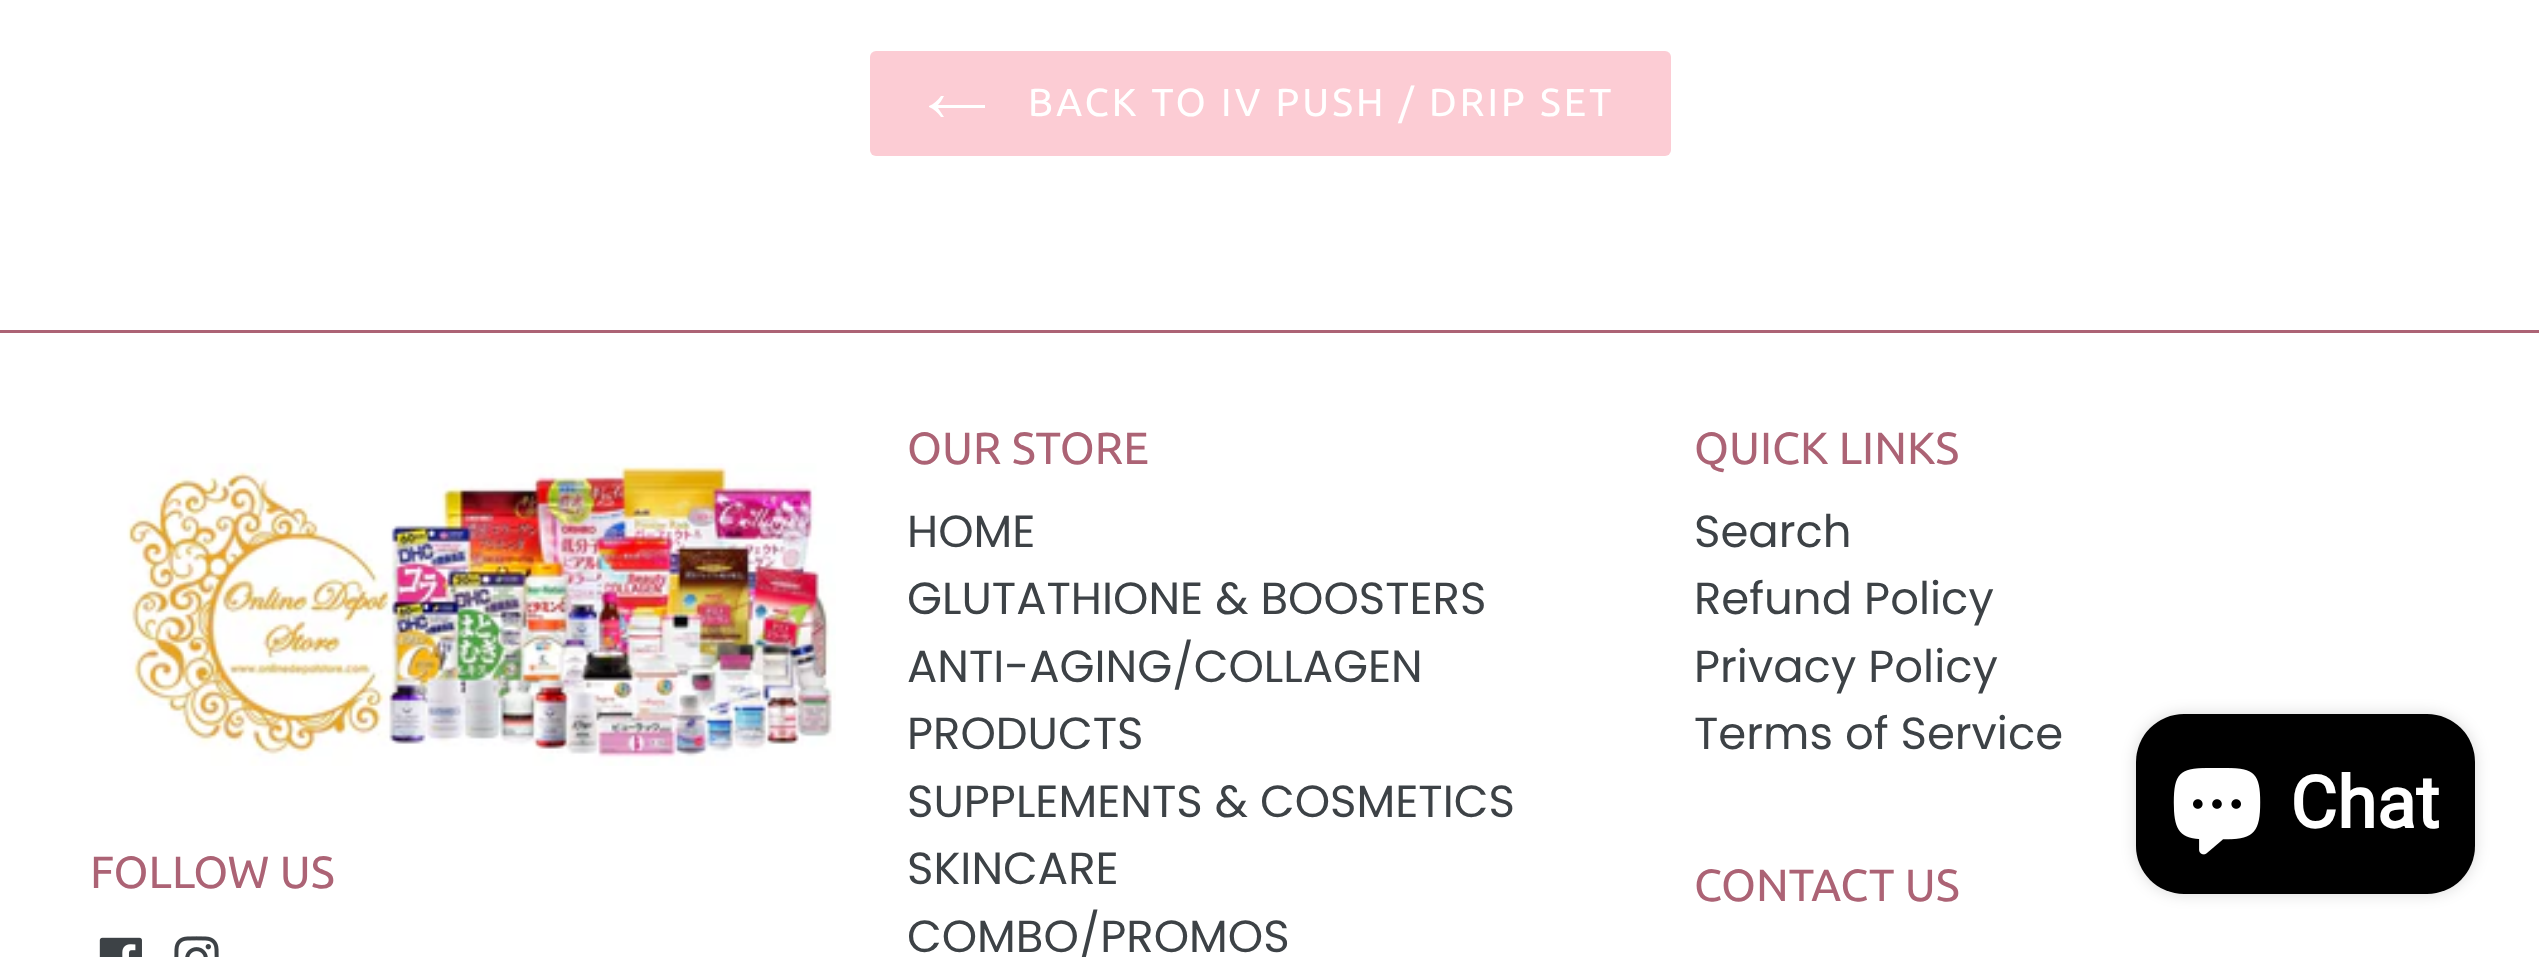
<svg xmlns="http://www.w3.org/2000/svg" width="2539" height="957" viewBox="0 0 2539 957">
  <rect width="100%" height="100%" fill="rgb(255,255,255)"/>
  <rect x="870" y="51" width="801" height="105" rx="6" fill="rgb(252,204,212)"/>
  <path d="M941 117C938 113 934 109 929 107V106C934 104 938 100 941 96H944C942 100 940 103 938 105H985V108H938C940 111 942 114 944 117Z" fill="rgb(255,255,255)" fill-rule="evenodd"/>
  <text x="1028" y="116" font-family="Ubuntu" font-size="39" letter-spacing="3.1" fill="rgb(255,255,255)">BACK TO IV PUSH / DRIP SET</text>
  <rect x="0" y="330" width="2539" height="3" fill="rgb(172,99,117)"/>
  <text x="907" y="464" font-family="Ubuntu" font-size="45" fill="rgb(172,99,117)">OUR STORE</text>
  <g font-family="Poppins" font-size="45" fill="rgb(61,66,70)">
    <text>
      <tspan x="907" y="547">HOME</tspan>
      <tspan x="907" y="614">GLUTATHIONE &amp; BOOSTERS</tspan>
      <tspan x="907" y="682">ANTI-AGING/COLLAGEN</tspan>
      <tspan x="907" y="749">PRODUCTS</tspan>
      <tspan x="907" y="817">SUPPLEMENTS &amp; COSMETICS</tspan>
      <tspan x="907" y="884">SKINCARE</tspan>
      <tspan x="907" y="952">COMBO/PROMOS</tspan>
    </text>
  </g>
  <text x="1694" y="464" font-family="Ubuntu" font-size="45" fill="rgb(172,99,117)">QUICK LINKS</text>
  <g font-family="Poppins" font-size="45" fill="rgb(61,66,70)">
    <text>
      <tspan x="1694" y="547">Search</tspan>
      <tspan x="1694" y="614">Refund Policy</tspan>
      <tspan x="1694" y="682">Privacy Policy</tspan>
      <tspan x="1694" y="749">Terms of Service</tspan>
    </text>
  </g>
  <image x="127" y="463" width="709" height="303" href="pic1.png"/>
  <text x="90" y="888" font-family="Ubuntu" font-size="45" fill="rgb(172,99,117)">FOLLOW US</text>
  <image x="99" y="937" width="43" height="20" href="pic2.png"/>
  <image x="174" y="936" width="45" height="21" href="pic3.png"/>
  <text x="1694" y="901" font-family="Ubuntu" font-size="45" fill="rgb(172,99,117)">CONTACT US</text>
  <rect x="2136" y="714" width="339" height="180" rx="48" fill="rgba(0,0,0,0.15)" filter="blur(7.5px)"/>
  <rect x="2136" y="714" width="339" height="180" rx="48" fill="rgb(0,0,0)"/>
  <image x="2173" y="768" width="88" height="87" href="pic4.png"/>
  <text x="2290" y="828" font-family="Roboto" font-size="72" font-weight="bold" fill="rgb(255,255,255)">Chat</text>
</svg>
